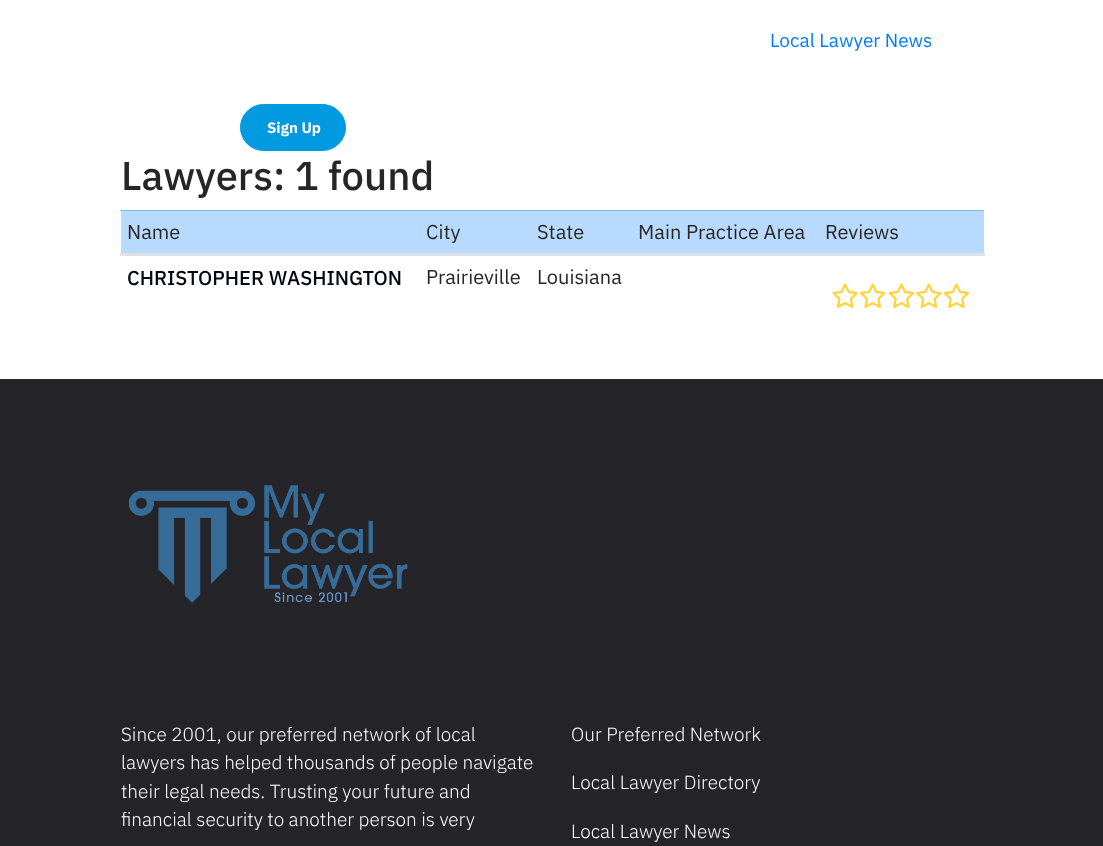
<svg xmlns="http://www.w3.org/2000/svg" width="1103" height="846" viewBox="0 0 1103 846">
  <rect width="100%" height="100%" fill="rgb(255,255,255)"/>
  <text x="770" y="47" font-family="IBM Plex Sans" font-size="19" fill="rgb(0,123,255)">Local Lawyer News</text>
  <rect x="240.5" y="104.5" width="105" height="46" rx="23" fill="rgb(1,154,224)" stroke="rgb(1,154,224)"/>
  <text x="267" y="133" font-family="IBM Plex Sans" font-size="15" font-weight="bold" fill="rgb(255,255,255)">Sign Up</text>
  <text x="121" y="190" font-family="IBM Plex Sans" font-size="40" font-weight="500" fill="rgb(38,38,38)">Lawyers: 1 found</text>
  <rect x="121" y="211" width="863" height="42" fill="rgb(184,218,255)"/>
  <g font-family="IBM Plex Sans" font-size="20" fill="rgb(38,38,38)">
    <text x="127" y="239">Name</text>
    <text x="426" y="239">City</text>
    <text x="537" y="239">State</text>
    <text x="638" y="239">Main Practice Area</text>
  </g>
  <rect x="120" y="210" width="864" height="1" fill="rgb(122,186,255)"/>
  <rect x="120" y="253" width="865" height="3" fill="rgb(222,226,230)"/>
  <text x="825" y="239" font-family="IBM Plex Sans" font-size="20" fill="rgb(38,38,38)">Reviews</text>
  <text x="127" y="285" font-family="IBM Plex Sans" font-size="20" font-weight="500" fill="rgb(0,8,16)">CHRISTOPHER WASHINGTON</text>
  <g font-family="IBM Plex Sans" font-size="20" fill="rgb(38,38,38)">
    <text x="426" y="284">Prairieville</text>
    <text x="537" y="284">Louisiana</text>
  </g>
  <image x="832" y="283" width="26" height="26" href="pic1.png"/>
  <image x="859" y="283" width="27" height="26" href="pic2.png"/>
  <image x="888" y="283" width="27" height="26" href="pic3.png"/>
  <image x="916" y="283" width="26" height="26" href="pic4.png"/>
  <image x="943" y="283" width="27" height="26" href="pic3.png"/>
  <rect x="0" y="379" width="1103" height="467" fill="rgb(37,36,41)"/>
  <image x="128" y="485" width="280" height="118" href="pic5.png"/>
  <g font-family="IBM Plex Sans" font-size="19" font-weight="300" fill="rgb(255,255,255)">
    <text>
      <tspan x="121" y="741">Since 2001, our preferred network of local</tspan>
      <tspan x="121" y="769">lawyers has helped thousands of people navigate</tspan>
      <tspan x="121" y="798">their legal needs. Trusting your future and</tspan>
      <tspan x="121" y="826">financial security to another person is very</tspan>
    </text>
    <text x="571" y="741">Our Preferred Network</text>
    <text x="571" y="789">Local Lawyer Directory</text>
    <text x="571" y="838">Local Lawyer News</text>
  </g>
</svg>
